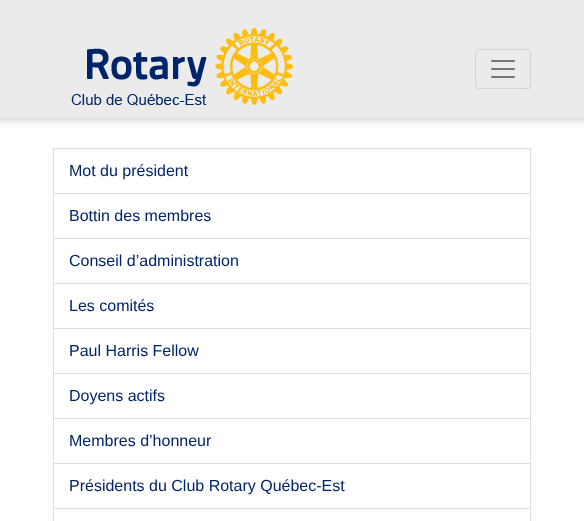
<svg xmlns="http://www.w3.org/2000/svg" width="584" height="521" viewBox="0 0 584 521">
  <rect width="100%" height="100%" fill="rgb(255,255,255)"/>
  <rect x="-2" y="-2" width="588" height="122" fill="rgb(204,204,204)" filter="blur(4px)"/>
  <rect x="0" y="0" width="584" height="118" fill="rgb(235,235,235)"/>
  <image x="71" y="28" width="222" height="78" href="pic1.png"/>
  <rect x="475.5" y="49.5" width="55" height="39" rx="3.5" fill="none" stroke="rgb(212,212,212)"/>
  <image x="491" y="60" width="24" height="18" href="pic2.png"/>
  <rect x="53.5" y="148.5" width="477" height="45" fill="none" stroke="rgb(221,221,221)"/>
  <text x="69" y="176" font-family="Liberation Sans" font-size="16" fill="rgb(0,36,108)">Mot du président</text>
  <rect x="53.5" y="193.5" width="477" height="45" fill="none" stroke="rgb(221,221,221)"/>
  <text x="69" y="221" font-family="Liberation Sans" font-size="16" fill="rgb(0,36,108)">Bottin des membres</text>
  <rect x="53.5" y="238.5" width="477" height="45" fill="none" stroke="rgb(221,221,221)"/>
  <text x="69" y="266" font-family="Liberation Sans" font-size="16" fill="rgb(0,36,108)">Conseil d’administration</text>
  <rect x="53.5" y="283.5" width="477" height="45" fill="none" stroke="rgb(221,221,221)"/>
  <text x="69" y="311" font-family="Liberation Sans" font-size="16" fill="rgb(0,36,108)">Les comités</text>
  <rect x="53.5" y="328.5" width="477" height="45" fill="none" stroke="rgb(221,221,221)"/>
  <text x="69" y="356" font-family="Liberation Sans" font-size="16" fill="rgb(0,36,108)">Paul Harris Fellow</text>
  <rect x="53.5" y="373.5" width="477" height="45" fill="none" stroke="rgb(221,221,221)"/>
  <text x="69" y="401" font-family="Liberation Sans" font-size="16" fill="rgb(0,36,108)">Doyens actifs</text>
  <rect x="53.5" y="418.5" width="477" height="45" fill="none" stroke="rgb(221,221,221)"/>
  <text x="69" y="446" font-family="Liberation Sans" font-size="16" fill="rgb(0,36,108)">Membres d’honneur</text>
  <rect x="53.5" y="463.5" width="477" height="45" fill="none" stroke="rgb(221,221,221)"/>
  <text x="69" y="491" font-family="Liberation Sans" font-size="16" fill="rgb(0,36,108)">Présidents du Club Rotary Québec-Est</text>
  <rect x="53.5" y="508.5" width="477" height="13" fill="none" stroke="rgb(221,221,221)"/>
</svg>
